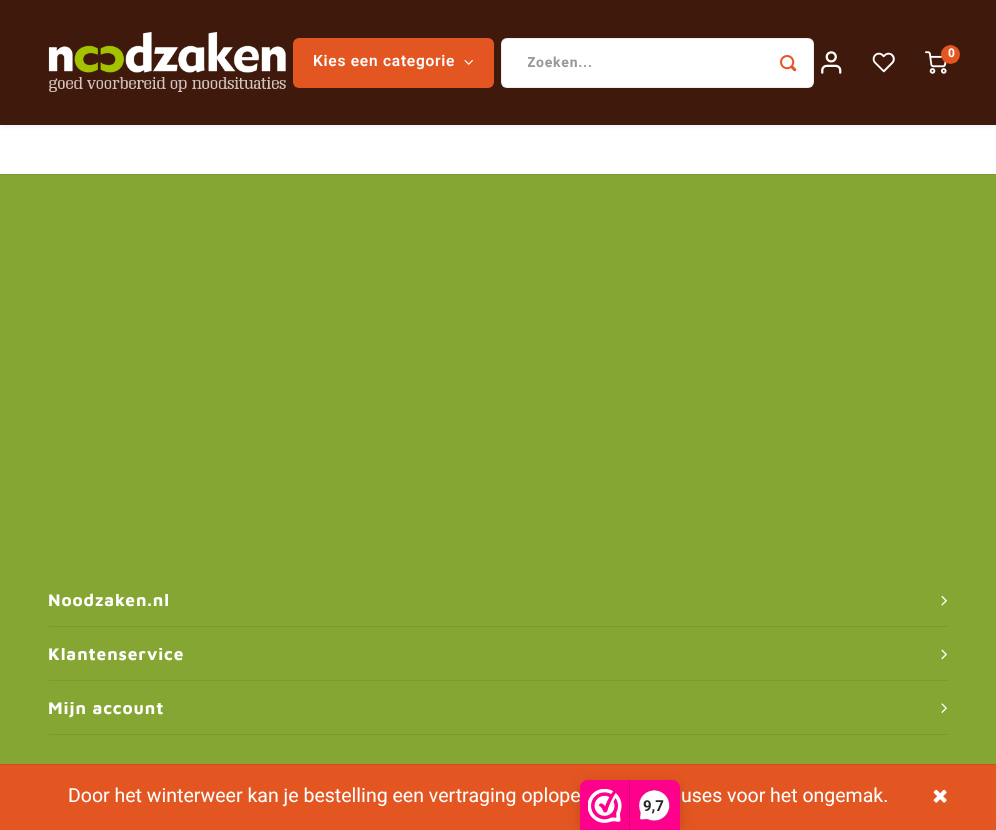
<svg xmlns="http://www.w3.org/2000/svg" width="996" height="830" viewBox="0 0 996 830">
  <defs>
    <clipPath id="clip1"><rect x="528" y="53" width="235" height="21"/></clipPath>
  </defs>
  <rect width="100%" height="100%" fill="rgb(255,255,255)"/>
  <rect x="0" y="1" width="996" height="125" fill="rgba(0,0,0,0.08)" filter="blur(2.5px)"/>
  <rect x="0" y="0" width="996" height="125" fill="rgb(63,25,12)"/>
  <image x="48" y="32" width="238" height="60" href="pic1.png"/>
  <image x="821" y="51" width="21" height="23" href="pic2.png"/>
  <image x="872" y="52" width="23" height="21" href="pic3.png"/>
  <image x="925" y="51" width="22" height="23" href="pic4.png"/>
  <circle cx="950.5" cy="54.5" r="9.5" fill="rgb(227,86,34)"/>
  <text x="948" y="57" font-family="Heebo" font-size="12" font-weight="bold" fill="rgb(255,255,255)">0</text>
  <rect x="293" y="38" width="201" height="50" rx="6" fill="rgb(227,86,34)"/>
  <text x="313" y="66" font-family="Heebo" font-size="15.5" font-weight="600" letter-spacing="0.75" fill="rgb(255,255,255)">Kies een categorie</text>
  <image x="464" y="59" width="9" height="6" href="pic5.png"/>
  <rect x="501" y="38" width="313" height="50" rx="6" fill="rgb(255,255,255)"/>
  <rect x="501.5" y="38.5" width="312" height="49" rx="5.5" fill="none" stroke="rgba(0,0,0,0.07)"/>
  <g clip-path="url(#clip1)">
    <text x="527" y="67" font-family="Heebo" font-size="14" font-weight="bold" letter-spacing="0.75" fill="rgb(153,153,153)">Zoeken...</text>
  </g>
  <image x="780" y="55" width="17" height="17" href="pic6.png"/>
  <rect x="0" y="175" width="996" height="589" fill="rgb(134,166,52)"/>
  <rect x="0" y="174" width="996" height="1" fill="rgb(125,154,48)"/>
  <rect x="49" y="626" width="900" height="1" fill="rgb(125,154,48)"/>
  <text x="48" y="606" font-family="Maven Pro" font-size="17.25" font-weight="bold" letter-spacing="0.9" fill="rgb(255,255,255)">Noodzaken.nl</text>
  <image x="941" y="595" width="6" height="11" href="pic7.png"/>
  <rect x="49" y="680" width="900" height="1" fill="rgb(125,154,48)"/>
  <text x="48" y="660" font-family="Maven Pro" font-size="17.25" font-weight="bold" letter-spacing="0.9" fill="rgb(255,255,255)">Klantenservice</text>
  <image x="941" y="649" width="6" height="11" href="pic8.png"/>
  <rect x="49" y="734" width="900" height="1" fill="rgb(125,154,48)"/>
  <text x="48" y="714" font-family="Maven Pro" font-size="17.25" font-weight="bold" letter-spacing="0.9" fill="rgb(255,255,255)">Mijn account</text>
  <image x="941" y="703" width="6" height="10" href="pic9.png"/>
  <rect x="0" y="765" width="996" height="65" fill="rgb(227,86,34)"/>
  <rect x="0" y="764" width="996" height="1" fill="rgb(204,77,31)"/>
  <g font-family="Heebo" font-size="19.5" fill="rgb(255,255,255)">
    <text x="68" y="802">Door het winterweer kan je bestelling een vertraging oplope</text>
    <text x="681" y="802">uses voor het ongemak.</text>
  </g>
  <image x="933" y="789" width="14" height="14" href="pic10.png"/>
  <rect x="580" y="783" width="100" height="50" rx="8" fill="rgba(0,0,0,0.15)" filter="blur(6px)"/>
  <path d="M588 780H672C676.5 780 680 783.5 680 788V830H580V788C580 783.5 583.5 780 588 780Z" fill="rgb(254,0,140)"/>
  <image x="588" y="789" width="34" height="34" href="pic11.png"/>
  <rect x="629" y="781" width="1" height="49" fill="rgb(216,0,119)"/>
  <image x="639" y="790" width="31" height="31" href="pic12.png"/>
  <text x="643" y="811" font-family="Roboto" font-size="15" font-weight="bold" fill="rgb(39,38,38)">9,7</text>
</svg>
